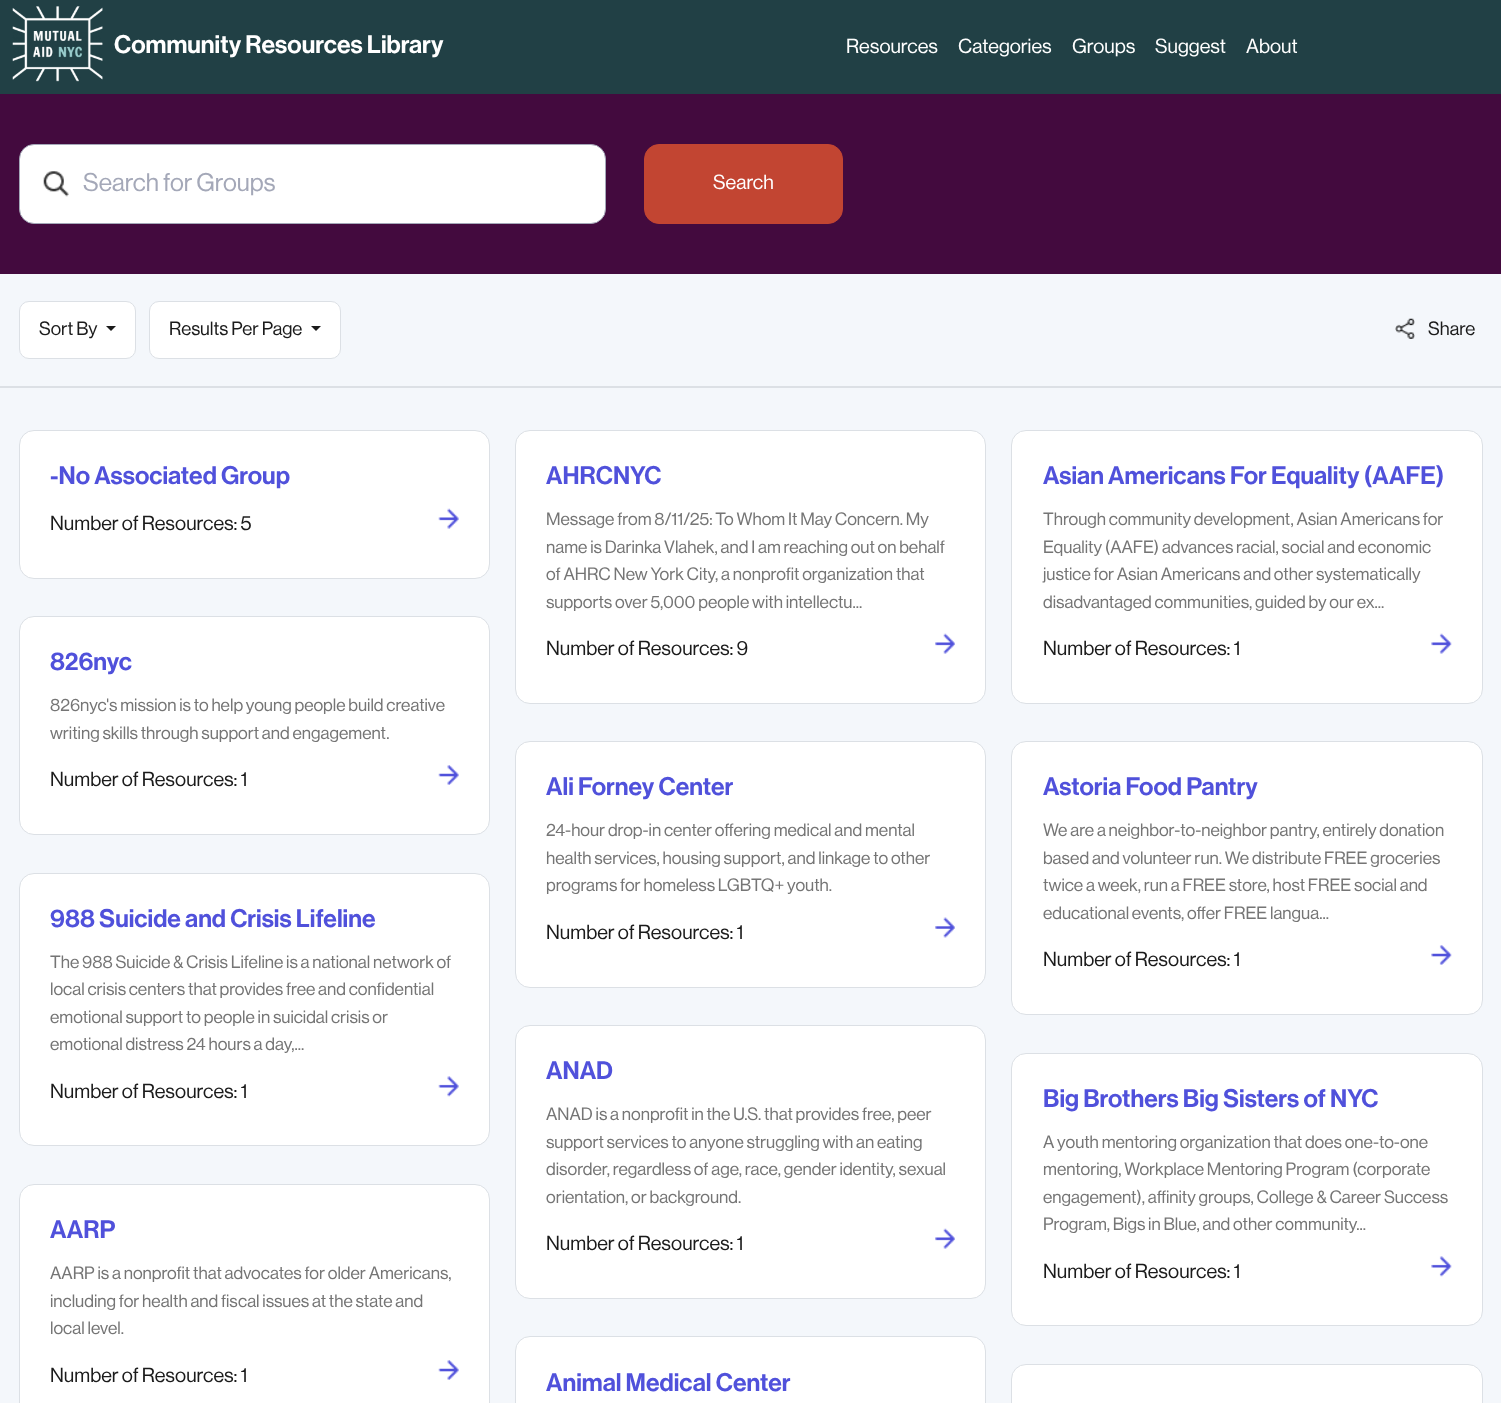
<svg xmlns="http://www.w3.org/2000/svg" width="1501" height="1403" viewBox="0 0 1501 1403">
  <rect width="100%" height="100%" fill="rgb(67,10,62)"/>
  <rect x="0" y="0" width="1501" height="94" fill="rgb(33,64,69)"/>
  <image x="12" y="6" width="91" height="76" href="pic1.png"/>
  <text x="114" y="53" font-family="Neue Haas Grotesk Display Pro" font-size="25" font-weight="600" fill="rgb(255,255,255)">Community Resources Library</text>
  <g font-family="Neue Haas Grotesk Display Pro" font-size="20" fill="rgb(255,255,255)">
    <text x="846" y="53">Resources</text>
    <text x="958" y="53">Categories</text>
    <text x="1072" y="53">Groups</text>
    <text x="1155" y="53">Suggest</text>
    <text x="1246" y="53">About</text>
  </g>
  <rect x="19.5" y="144.5" width="586" height="79" rx="14.5" fill="rgb(255,255,255)" stroke="rgb(164,168,184)"/>
  <image x="43" y="171" width="26" height="26" href="pic2.png"/>
  <text x="83" y="191" font-family="Neue Haas Grotesk Display Pro" font-size="25" fill="rgb(164,168,184)">Search for Groups</text>
  <rect x="644.5" y="144.5" width="198" height="79" rx="14.5" fill="rgb(194,69,50)" stroke="rgb(194,69,50)"/>
  <text x="713" y="189" font-family="Neue Haas Grotesk Display Pro" font-size="20" fill="rgb(255,255,255)">Search</text>
  <rect x="0" y="386" width="1501" height="2" fill="rgb(220,224,229)"/>
  <rect x="0" y="274" width="1501" height="112" fill="rgb(244,247,251)"/>
  <rect x="19.5" y="301.5" width="116" height="57" rx="9.5" fill="rgb(255,255,255)" stroke="rgb(220,224,229)"/>
  <text x="39" y="335" font-family="Neue Haas Grotesk Display Pro" font-size="18.75" fill="rgb(27,27,27)">Sort By</text>
  <path d="M106 326H116L111 331Z" fill="rgb(27,27,27)"/>
  <rect x="149.5" y="301.5" width="191" height="57" rx="9.5" fill="rgb(255,255,255)" stroke="rgb(220,224,229)"/>
  <text x="169" y="335" font-family="Neue Haas Grotesk Display Pro" font-size="18.75" fill="rgb(27,27,27)">Results Per Page</text>
  <path d="M311 326H321L316 331Z" fill="rgb(27,27,27)"/>
  <image x="1395" y="318" width="20" height="21" href="pic3.png"/>
  <text x="1428" y="335" font-family="Neue Haas Grotesk Display Pro" font-size="18.75" fill="rgb(27,27,27)">Share</text>
  <rect x="0" y="388" width="1501" height="1015" fill="rgb(244,247,251)"/>
  <rect x="19.5" y="430.5" width="470" height="148" rx="14.5" fill="rgb(255,255,255)" stroke="rgb(220,224,229)"/>
  <text x="50" y="484" font-family="Neue Haas Grotesk Display Pro" font-size="25" font-weight="600" fill="rgb(80,81,219)">-No Associated Group</text>
  <text x="50" y="530" font-family="Neue Haas Grotesk Display Pro" font-size="20" fill="rgb(27,27,27)">Number of Resources: 5</text>
  <image x="438" y="508" width="21" height="21" href="pic4.png"/>
  <rect x="515.5" y="430.5" width="470" height="273" rx="14.5" fill="rgb(255,255,255)" stroke="rgb(220,224,229)"/>
  <text x="546" y="484" font-family="Neue Haas Grotesk Display Pro" font-size="25" font-weight="600" fill="rgb(80,81,219)">AHRCNYC</text>
  <g font-family="Neue Haas Grotesk Display Pro" font-size="17.5" fill="rgb(117,117,117)">
    <text>
      <tspan x="546" y="525">Message from 8/11/25: To Whom It May Concern. My</tspan>
      <tspan x="546" y="553">name is Darinka Vlahek, and I am reaching out on behalf</tspan>
      <tspan x="546" y="580">of AHRC New York City, a nonprofit organization that</tspan>
      <tspan x="546" y="608">supports over 5,000 people with intellectu...</tspan>
    </text>
  </g>
  <text x="546" y="655" font-family="Neue Haas Grotesk Display Pro" font-size="20" fill="rgb(27,27,27)">Number of Resources: 9</text>
  <image x="935" y="633" width="20" height="21" href="pic5.png"/>
  <rect x="1011.5" y="430.5" width="471" height="273" rx="14.5" fill="rgb(255,255,255)" stroke="rgb(220,224,229)"/>
  <text x="1043" y="484" font-family="Neue Haas Grotesk Display Pro" font-size="25" font-weight="600" fill="rgb(80,81,219)">Asian Americans For Equality (AAFE)</text>
  <g font-family="Neue Haas Grotesk Display Pro" font-size="17.5" fill="rgb(117,117,117)">
    <text>
      <tspan x="1043" y="525">Through community development, Asian Americans for</tspan>
      <tspan x="1043" y="553">Equality (AAFE) advances racial, social and economic</tspan>
      <tspan x="1043" y="580">justice for Asian Americans and other systematically</tspan>
      <tspan x="1043" y="608">disadvantaged communities, guided by our ex...</tspan>
    </text>
  </g>
  <text x="1043" y="655" font-family="Neue Haas Grotesk Display Pro" font-size="20" fill="rgb(27,27,27)">Number of Resources: 1</text>
  <image x="1431" y="633" width="21" height="21" href="pic6.png"/>
  <rect x="19.5" y="616.5" width="470" height="218" rx="14.5" fill="rgb(255,255,255)" stroke="rgb(220,224,229)"/>
  <text x="50" y="670" font-family="Neue Haas Grotesk Display Pro" font-size="25" font-weight="600" fill="rgb(80,81,219)">826nyc</text>
  <g font-family="Neue Haas Grotesk Display Pro" font-size="17.5" fill="rgb(117,117,117)">
    <text>
      <tspan x="50" y="711">826nyc's mission is to help young people build creative</tspan>
      <tspan x="50" y="739">writing skills through support and engagement.</tspan>
    </text>
  </g>
  <text x="50" y="786" font-family="Neue Haas Grotesk Display Pro" font-size="20" fill="rgb(27,27,27)">Number of Resources: 1</text>
  <image x="438" y="765" width="21" height="20" href="pic7.png"/>
  <rect x="515.5" y="741.5" width="470" height="246" rx="14.5" fill="rgb(255,255,255)" stroke="rgb(220,224,229)"/>
  <text x="546" y="795" font-family="Neue Haas Grotesk Display Pro" font-size="25" font-weight="600" fill="rgb(80,81,219)">Ali Forney Center</text>
  <g font-family="Neue Haas Grotesk Display Pro" font-size="17.5" fill="rgb(117,117,117)">
    <text>
      <tspan x="546" y="836">24-hour drop-in center offering medical and mental</tspan>
      <tspan x="546" y="864">health services, housing support, and linkage to other</tspan>
      <tspan x="546" y="891">programs for homeless LGBTQ+ youth.</tspan>
    </text>
  </g>
  <text x="546" y="939" font-family="Neue Haas Grotesk Display Pro" font-size="20" fill="rgb(27,27,27)">Number of Resources: 1</text>
  <image x="935" y="917" width="20" height="21" href="pic8.png"/>
  <rect x="1011.5" y="741.5" width="471" height="273" rx="14.5" fill="rgb(255,255,255)" stroke="rgb(220,224,229)"/>
  <text x="1043" y="795" font-family="Neue Haas Grotesk Display Pro" font-size="25" font-weight="600" fill="rgb(80,81,219)">Astoria Food Pantry</text>
  <g font-family="Neue Haas Grotesk Display Pro" font-size="17.5" fill="rgb(117,117,117)">
    <text>
      <tspan x="1043" y="836">We are a neighbor-to-neighbor pantry, entirely donation</tspan>
      <tspan x="1043" y="864">based and volunteer run. We distribute FREE groceries</tspan>
      <tspan x="1043" y="891">twice a week, run a FREE store, host FREE social and</tspan>
      <tspan x="1043" y="919">educational events, offer FREE langua...</tspan>
    </text>
  </g>
  <text x="1043" y="966" font-family="Neue Haas Grotesk Display Pro" font-size="20" fill="rgb(27,27,27)">Number of Resources: 1</text>
  <image x="1431" y="945" width="21" height="20" href="pic9.png"/>
  <rect x="19.5" y="873.5" width="470" height="272" rx="14.5" fill="rgb(255,255,255)" stroke="rgb(220,224,229)"/>
  <text x="50" y="927" font-family="Neue Haas Grotesk Display Pro" font-size="25" font-weight="600" fill="rgb(80,81,219)">988 Suicide and Crisis Lifeline</text>
  <g font-family="Neue Haas Grotesk Display Pro" font-size="17.5" fill="rgb(117,117,117)">
    <text>
      <tspan x="50" y="968">The 988 Suicide &amp; Crisis Lifeline is a national network of</tspan>
      <tspan x="50" y="995">local crisis centers that provides free and confidential</tspan>
      <tspan x="50" y="1023">emotional support to people in suicidal crisis or</tspan>
      <tspan x="50" y="1050">emotional distress 24 hours a day,...</tspan>
    </text>
  </g>
  <text x="50" y="1098" font-family="Neue Haas Grotesk Display Pro" font-size="20" fill="rgb(27,27,27)">Number of Resources: 1</text>
  <image x="438" y="1076" width="21" height="21" href="pic10.png"/>
  <rect x="515.5" y="1025.5" width="470" height="273" rx="14.5" fill="rgb(255,255,255)" stroke="rgb(220,224,229)"/>
  <text x="546" y="1079" font-family="Neue Haas Grotesk Display Pro" font-size="25" font-weight="600" fill="rgb(80,81,219)">ANAD</text>
  <g font-family="Neue Haas Grotesk Display Pro" font-size="17.5" fill="rgb(117,117,117)">
    <text>
      <tspan x="546" y="1120">ANAD is a nonprofit in the U.S. that provides free, peer</tspan>
      <tspan x="546" y="1148">support services to anyone struggling with an eating</tspan>
      <tspan x="546" y="1175">disorder, regardless of age, race, gender identity, sexual</tspan>
      <tspan x="546" y="1203">orientation, or background.</tspan>
    </text>
  </g>
  <text x="546" y="1250" font-family="Neue Haas Grotesk Display Pro" font-size="20" fill="rgb(27,27,27)">Number of Resources: 1</text>
  <image x="935" y="1228" width="20" height="21" href="pic5.png"/>
  <rect x="1011.5" y="1053.5" width="471" height="272" rx="14.5" fill="rgb(255,255,255)" stroke="rgb(220,224,229)"/>
  <text x="1043" y="1107" font-family="Neue Haas Grotesk Display Pro" font-size="25" font-weight="600" fill="rgb(80,81,219)">Big Brothers Big Sisters of NYC</text>
  <g font-family="Neue Haas Grotesk Display Pro" font-size="17.5" fill="rgb(117,117,117)">
    <text>
      <tspan x="1043" y="1148">A youth mentoring organization that does one-to-one</tspan>
      <tspan x="1043" y="1175">mentoring, Workplace Mentoring Program (corporate</tspan>
      <tspan x="1043" y="1203">engagement), affinity groups, College &amp; Career Success</tspan>
      <tspan x="1043" y="1230">Program, Bigs in Blue, and other community...</tspan>
    </text>
  </g>
  <text x="1043" y="1278" font-family="Neue Haas Grotesk Display Pro" font-size="20" fill="rgb(27,27,27)">Number of Resources: 1</text>
  <image x="1431" y="1256" width="21" height="21" href="pic11.png"/>
  <rect x="19.5" y="1184.5" width="470" height="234" rx="14.5" fill="rgb(255,255,255)" stroke="rgb(220,224,229)"/>
  <text x="50" y="1238" font-family="Neue Haas Grotesk Display Pro" font-size="25" font-weight="600" fill="rgb(80,81,219)">AARP</text>
  <g font-family="Neue Haas Grotesk Display Pro" font-size="17.5" fill="rgb(117,117,117)">
    <text>
      <tspan x="50" y="1279">AARP is a nonprofit that advocates for older Americans,</tspan>
      <tspan x="50" y="1307">including for health and fiscal issues at the state and</tspan>
      <tspan x="50" y="1334">local level.</tspan>
    </text>
  </g>
  <text x="50" y="1382" font-family="Neue Haas Grotesk Display Pro" font-size="20" fill="rgb(27,27,27)">Number of Resources: 1</text>
  <image x="438" y="1360" width="21" height="20" href="pic7.png"/>
  <rect x="515.5" y="1336.5" width="470" height="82" rx="14.5" fill="rgb(255,255,255)" stroke="rgb(220,224,229)"/>
  <text x="546" y="1391" font-family="Neue Haas Grotesk Display Pro" font-size="25" font-weight="600" fill="rgb(80,81,219)">Animal Medical Center</text>
  <rect x="1011.5" y="1364.5" width="471" height="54" rx="14.5" fill="rgb(255,255,255)" stroke="rgb(220,224,229)"/>
</svg>
